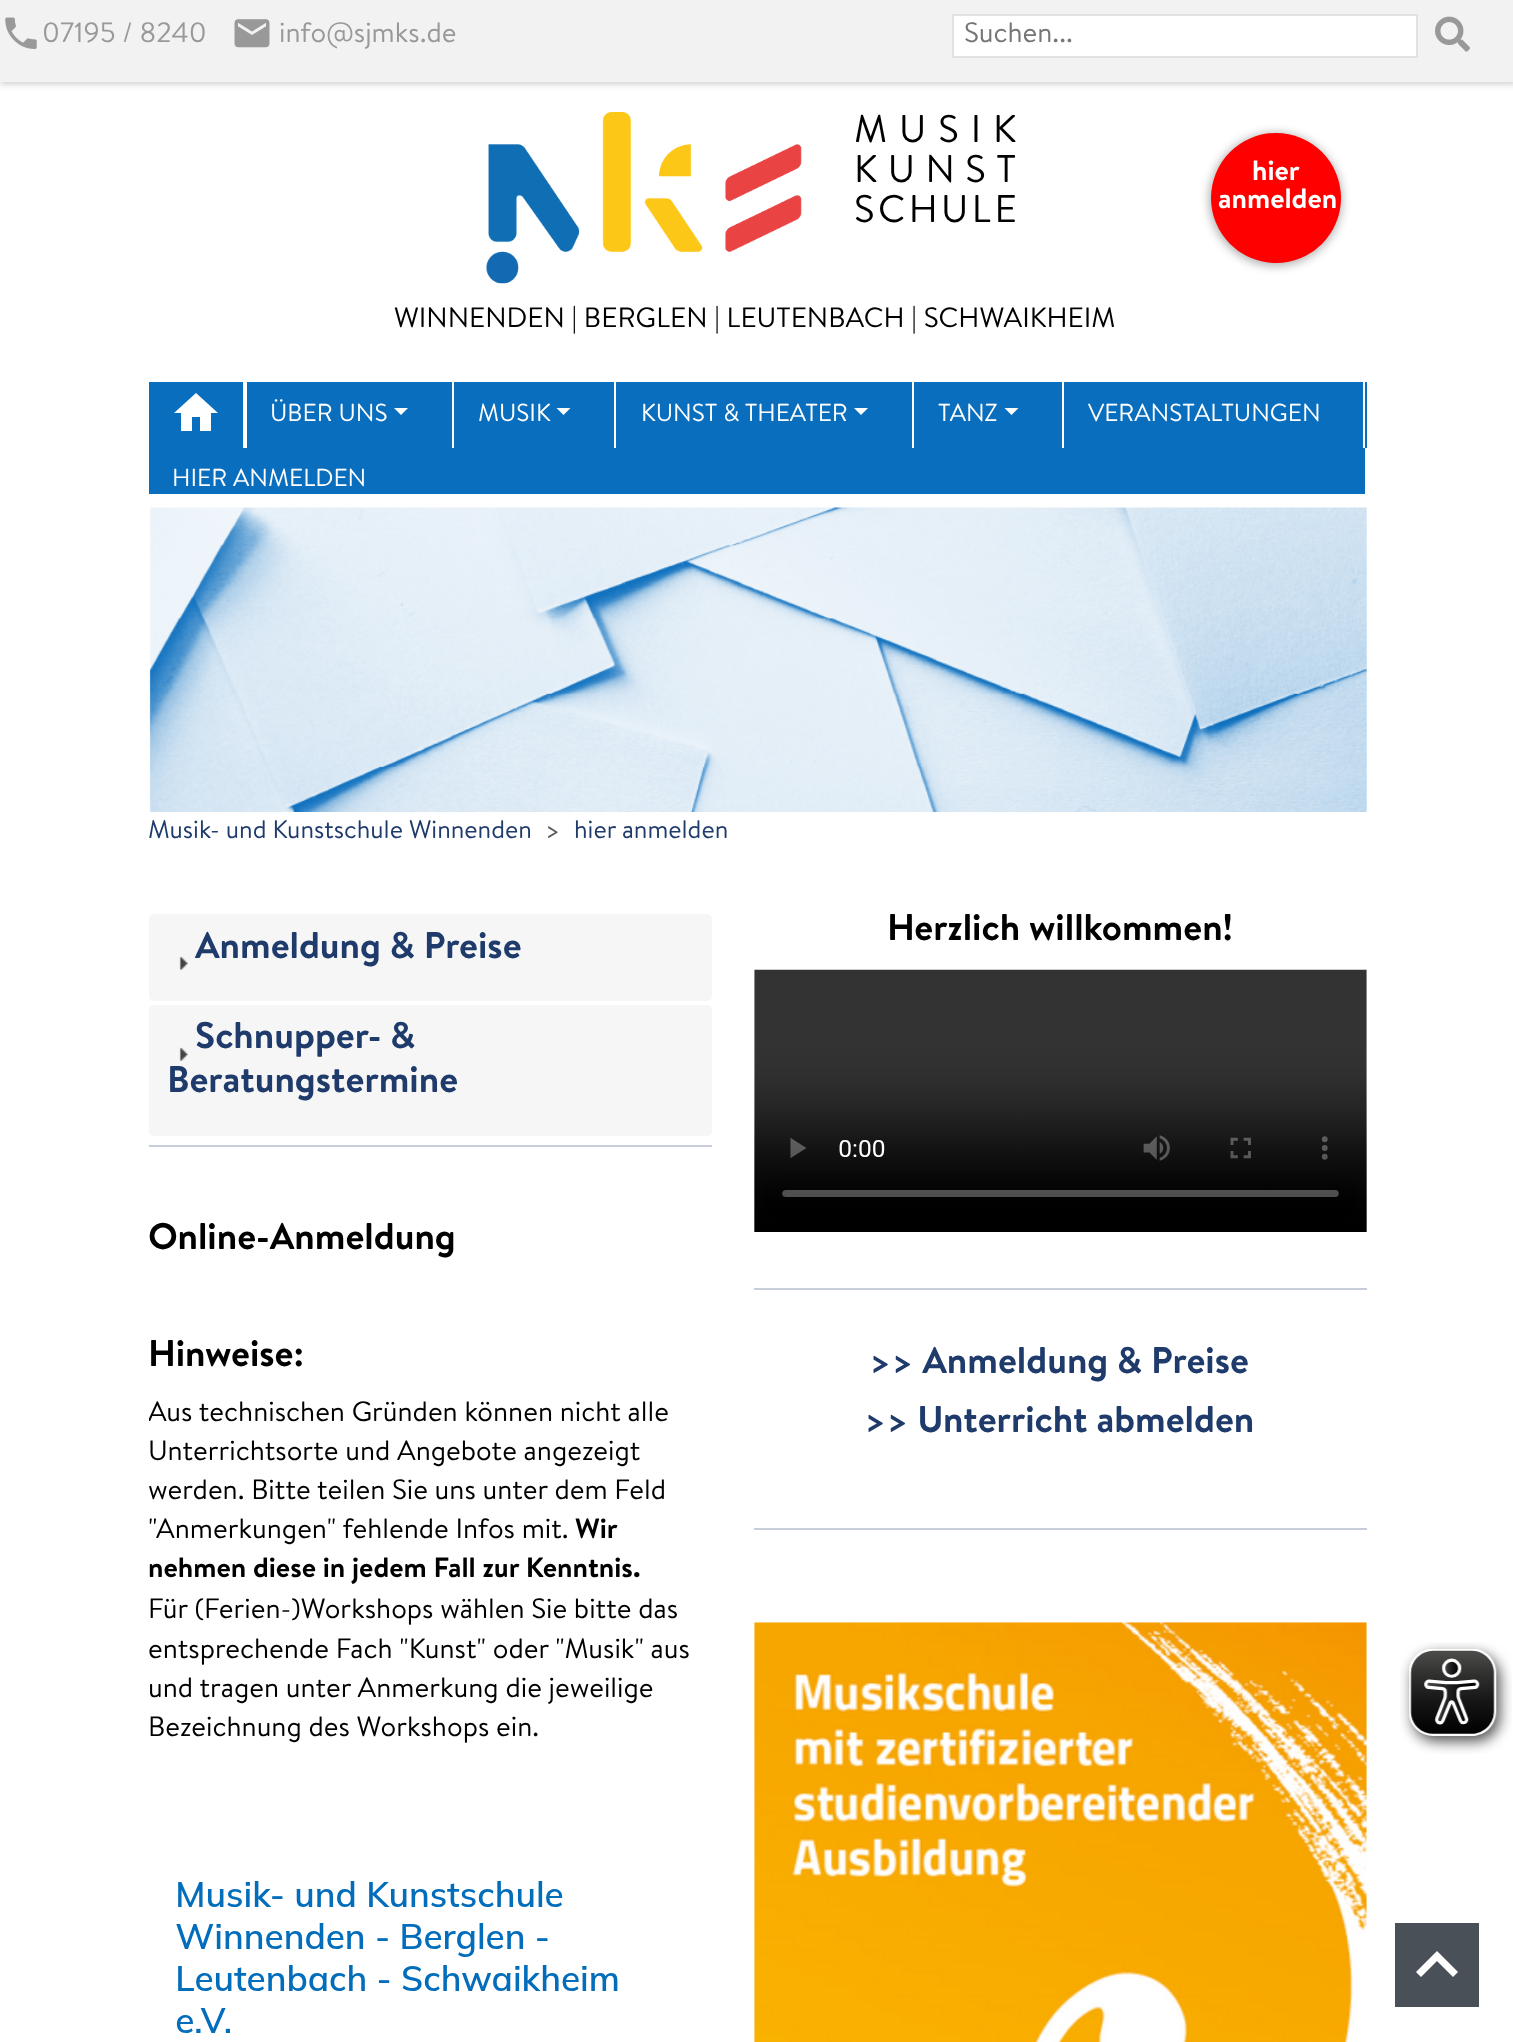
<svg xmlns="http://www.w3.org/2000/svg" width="1513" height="2042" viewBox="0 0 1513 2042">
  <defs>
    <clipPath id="clip1"><rect x="149" y="1278" width="563" height="554"/></clipPath>
  </defs>
  <rect width="100%" height="100%" fill="rgb(255,255,255)"/>
  <rect x="0" y="-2" width="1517" height="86" fill="rgba(0,0,0,0.2)" filter="blur(3.5px)"/>
  <rect x="0" y="0" width="1513" height="82" fill="rgb(242,242,242)"/>
  <image x="5" y="17" width="32" height="32" href="pic1.png"/>
  <text x="42" y="42" font-family="'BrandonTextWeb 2'" font-size="28" fill="rgb(153,153,153)">07195 / 8240</text>
  <image x="234" y="19" width="36" height="29" href="pic2.png"/>
  <text x="279" y="42" font-family="'BrandonTextWeb 2'" font-size="28" fill="rgb(153,153,153)">info@sjmks.de</text>
  <rect x="953" y="15" width="464" height="42" fill="rgb(255,255,255)" stroke="rgb(225,225,226)" stroke-width="2"/>
  <text x="964" y="42" font-family="'BrandonTextWeb 2'" font-size="28" fill="rgb(117,117,117)">Suchen...</text>
  <image x="1435" y="16" width="35" height="36" href="pic3.png"/>
  <image x="486" y="112" width="316" height="172" href="pic4.png"/>
  <text x="854" y="142" font-family="'BrandonTextWeb 2'" font-size="38.5" letter-spacing="12" fill="rgb(0,0,0)">MUSIK</text>
  <text x="854" y="182" font-family="'BrandonTextWeb 2'" font-size="38.5" letter-spacing="10.5" fill="rgb(0,0,0)">KUNST</text>
  <text x="854" y="222" font-family="'BrandonTextWeb 2'" font-size="38.5" letter-spacing="3.5" fill="rgb(0,0,0)">SCHULE</text>
  <rect x="1209" y="133" width="133" height="133" rx="66.5" fill="rgba(0,0,0,0.3)" filter="blur(5px)"/>
  <circle cx="1276" cy="198" r="65" fill="rgb(255,0,0)"/>
  <g font-family="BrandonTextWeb" font-size="28" fill="rgb(255,255,255)">
    <text x="1252" y="180">hier</text>
    <text x="1218" y="208">anmelden</text>
  </g>
  <text x="394" y="327" font-family="'BrandonTextWeb 2'" font-size="28" fill="rgb(0,0,0)">WINNENDEN | BERGLEN | LEUTENBACH | SCHWAIKHEIM</text>
  <rect x="149" y="382" width="1218" height="112" fill="rgb(10,110,190)"/>
  <rect x="243" y="382" width="4" height="66" fill="rgb(255,255,255)"/>
  <path d="M192 431H181V413H174L196 393L218 413H211V431H200V417H192Z" fill="rgb(255,255,255)"/>
  <rect x="452" y="382" width="2" height="66" fill="rgb(255,255,255)"/>
  <text x="270" y="421" font-family="'BrandonTextWeb 2'" font-size="24.5" fill="rgb(255,255,255)">ÜBER UNS</text>
  <path d="M394 408H408L401 415Z" fill="rgb(255,255,255)"/>
  <rect x="614" y="382" width="2" height="66" fill="rgb(255,255,255)"/>
  <text x="478" y="421" font-family="'BrandonTextWeb 2'" font-size="24.5" fill="rgb(255,255,255)">MUSIK</text>
  <path d="M556.5 408H570.5L563.5 415Z" fill="rgb(255,255,255)"/>
  <rect x="912" y="382" width="2" height="66" fill="rgb(255,255,255)"/>
  <text x="641" y="421" font-family="'BrandonTextWeb 2'" font-size="24.5" fill="rgb(255,255,255)">KUNST &amp; THEATER</text>
  <path d="M854 408H868L861 415Z" fill="rgb(255,255,255)"/>
  <rect x="1062" y="382" width="2" height="66" fill="rgb(255,255,255)"/>
  <text x="938" y="421" font-family="'BrandonTextWeb 2'" font-size="24.5" fill="rgb(255,255,255)">TANZ</text>
  <path d="M1004.5 408H1018.5L1011.5 415Z" fill="rgb(255,255,255)"/>
  <rect x="1363" y="382" width="2" height="66" fill="rgb(255,255,255)"/>
  <text x="1088" y="421" font-family="'BrandonTextWeb 2'" font-size="24.5" fill="rgb(255,255,255)">VERANSTALTUNGEN</text>
  <rect x="1365" y="448" width="2" height="46" fill="rgb(255,255,255)"/>
  <text x="172" y="486" font-family="'BrandonTextWeb 2'" font-size="24.5" fill="rgb(255,255,255)">HIER ANMELDEN</text>
  <image x="149" y="507" width="1218" height="305" href="pic5.png"/>
  <text x="148" y="838" font-family="'BrandonTextWeb 2'" font-size="25.25" fill="rgb(31,59,107)">Musik- und Kunstschule Winnenden</text>
  <text x="545" y="838" font-family="'BrandonTextWeb 2'" font-size="25.25" fill="rgb(89,92,95)">&gt;</text>
  <text x="574" y="838" font-family="'BrandonTextWeb 2'" font-size="25.25" fill="rgb(31,59,107)">hier anmelden</text>
  <rect x="149" y="914" width="563" height="87" rx="5" fill="rgb(246,246,246)"/>
  <image x="179" y="956" width="9" height="14" href="pic6.png"/>
  <text x="195" y="958" font-family="BrandonTextWeb" font-size="37" fill="rgb(31,59,107)">Anmeldung &amp; Preise</text>
  <rect x="149" y="1005" width="563" height="131" rx="5" fill="rgb(246,246,246)"/>
  <g font-family="BrandonTextWeb" font-size="37" fill="rgb(31,59,107)">
    <text x="195" y="1048">Schnupper- &amp;</text>
    <text x="167" y="1092">Beratungstermine</text>
  </g>
  <image x="179" y="1047" width="9" height="14" href="pic6.png"/>
  <rect x="149" y="1145" width="563" height="2" fill="rgb(199,206,218)"/>
  <g font-family="BrandonTextWeb" font-size="37" fill="rgb(0,0,0)">
    <text x="148" y="1249">Online-Anmeldung</text>
    <text x="148" y="1366">Hinweise:</text>
  </g>
  <g clip-path="url(#clip1)">
    <text x="148" y="1421" font-family="'BrandonTextWeb 2'" font-size="28" fill="rgb(0,0,0)">Aus technischen Gründen können nicht alle</text>
  </g>
  <g font-family="'BrandonTextWeb 2'" font-size="28" fill="rgb(0,0,0)">
    <text>
      <tspan x="148" y="1460">Unterrichtsorte und Angebote angezeigt</tspan>
      <tspan x="148" y="1499">werden. Bitte teilen Sie uns unter dem Feld</tspan>
      <tspan x="148" y="1538">"Anmerkungen" fehlende Infos mit.</tspan>
    </text>
  </g>
  <g font-family="BrandonTextWeb" font-size="28" fill="rgb(0,0,0)">
    <text x="575" y="1538">Wir</text>
    <text x="148" y="1577">nehmen diese in jedem Fall zur Kenntnis.</text>
  </g>
  <g font-family="'BrandonTextWeb 2'" font-size="28" fill="rgb(0,0,0)">
    <text>
      <tspan x="148" y="1618">Für (Ferien-)Workshops wählen Sie bitte das</tspan>
      <tspan x="148" y="1658">entsprechende Fach "Kunst" oder "Musik" aus</tspan>
      <tspan x="148" y="1697">und tragen unter Anmerkung die jeweilige</tspan>
      <tspan x="148" y="1736">Bezeichnung des Workshops ein.</tspan>
    </text>
  </g>
  <image x="176" y="1881" width="442" height="152" href="pic7.png"/>
  <text x="887" y="940" font-family="BrandonTextWeb" font-size="37" fill="rgb(0,0,0)">Herzlich willkommen!</text>
  <image x="754" y="969" width="613" height="263" href="pic8.png"/>
  <rect x="754" y="1288" width="613" height="2" fill="rgb(199,206,218)"/>
  <g font-family="BrandonTextWeb" font-size="37" fill="rgb(31,59,107)">
    <text x="869" y="1373">&gt;&gt; Anmeldung &amp; Preise</text>
    <text x="864" y="1432">&gt;&gt; Unterricht abmelden</text>
  </g>
  <rect x="754" y="1528" width="613" height="2" fill="rgb(199,206,218)"/>
  <image x="754" y="1622" width="613" height="420" href="pic9.png"/>
  <rect x="1395" y="1923" width="84" height="84" fill="rgb(73,80,87)"/>
  <path d="M1437 1951L1458 1972L1453 1977L1437 1961L1421 1977L1416 1972Z" fill="rgb(255,255,255)"/>
  <image x="1400" y="1642" width="112" height="112" href="pic10.png"/>
</svg>
